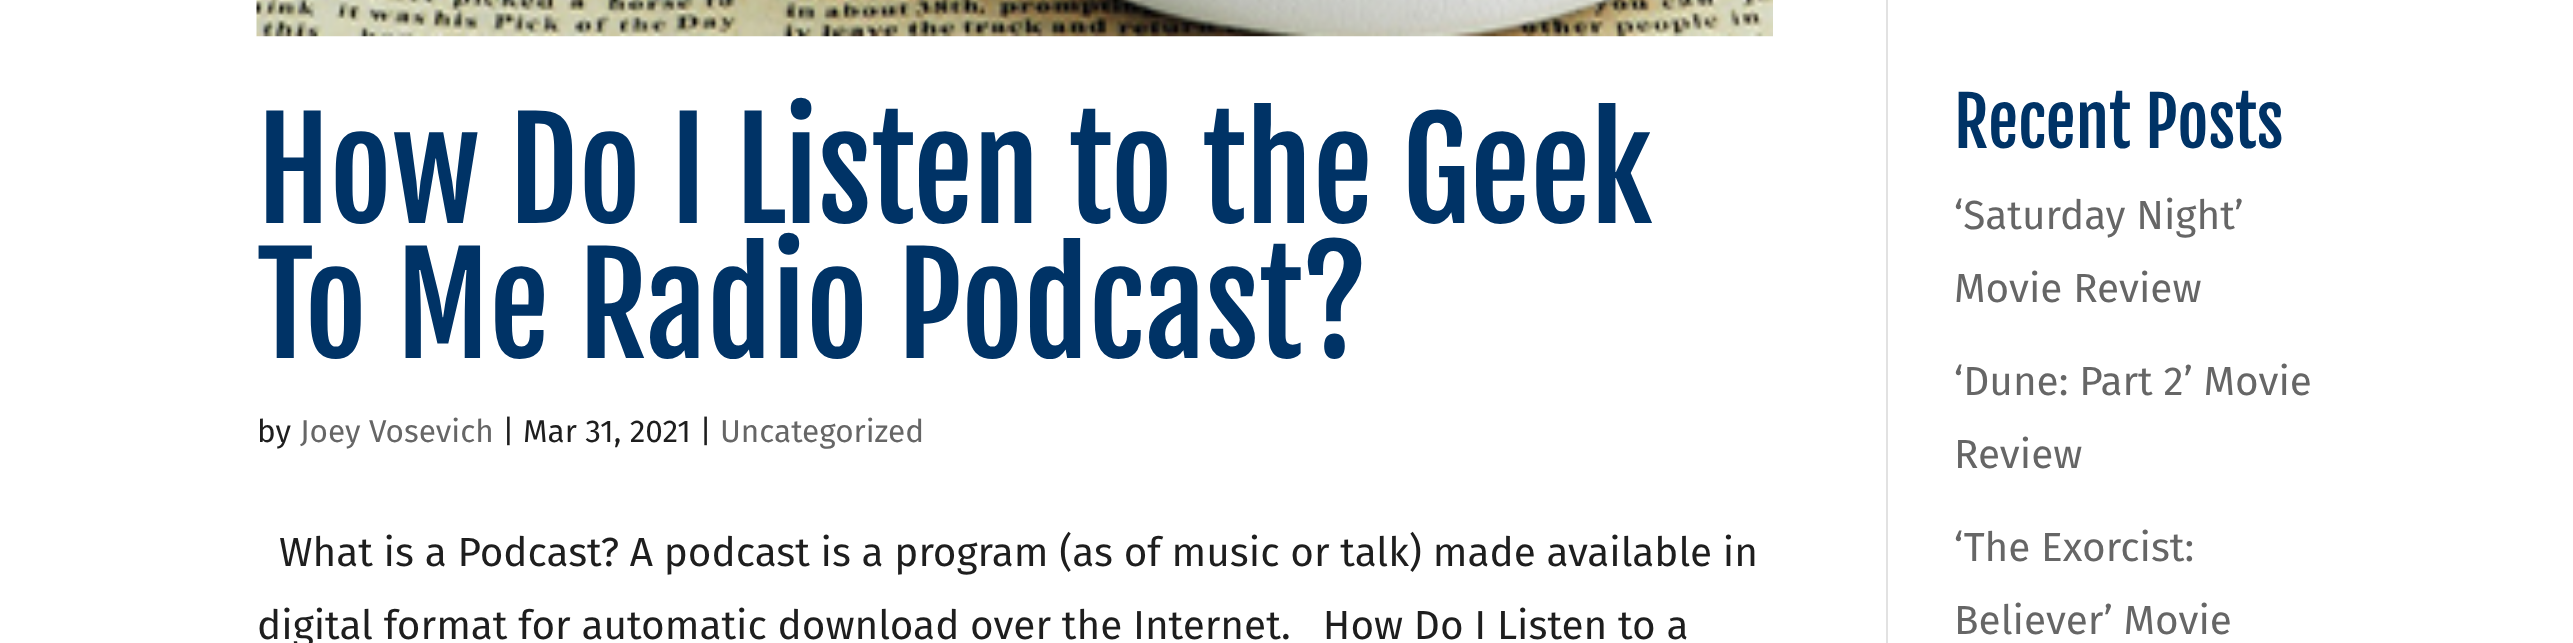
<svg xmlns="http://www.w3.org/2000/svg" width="2573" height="643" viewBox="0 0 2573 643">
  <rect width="100%" height="100%" fill="rgb(255,255,255)"/>
  <rect x="1886" y="0" width="2" height="643" fill="rgb(226,226,226)"/>
  <image x="256" y="0" width="1517" height="37" href="pic1.png"/>
  <g font-family="Fjalla One" font-size="135" fill="rgb(0,51,102)">
    <text>
      <tspan x="257" y="223">How Do I Listen to the Geek</tspan>
      <tspan x="257" y="358">To Me Radio Podcast?</tspan>
    </text>
  </g>
  <text x="257" y="442" font-family="Fira Sans" font-size="31.5" fill="rgb(30,30,30)">by</text>
  <text x="300" y="442" font-family="Fira Sans" font-size="31.5" fill="rgb(102,102,102)">Joey Vosevich</text>
  <text x="502" y="442" font-family="Fira Sans" font-size="31.5" fill="rgb(30,30,30)">| Mar 31, 2021 |</text>
  <text x="720" y="442" font-family="Fira Sans" font-size="31.5" fill="rgb(102,102,102)">Uncategorized</text>
  <g font-family="Fira Sans" font-size="40.5" fill="rgb(30,30,30)">
    <text x="279" y="566">What is a Podcast? A podcast is a program (as of music or talk) made available in</text>
    <text x="257" y="639" xml:space="preserve">digital format for automatic download over the Internet.   How Do I Listen to a</text>
  </g>
  <text x="1954" y="148" font-family="Fjalla One" font-size="67.5" fill="rgb(0,51,102)">Recent Posts</text>
  <g font-family="Fira Sans" font-size="40.5" fill="rgb(102,102,102)">
    <text>
      <tspan x="1954" y="229">‘Saturday Night’</tspan>
      <tspan x="1954" y="302">Movie Review</tspan>
    </text>
    <text>
      <tspan x="1954" y="395">‘Dune: Part 2’ Movie</tspan>
      <tspan x="1954" y="468">Review</tspan>
    </text>
    <text>
      <tspan x="1954" y="561">‘The Exorcist:</tspan>
      <tspan x="1954" y="634">Believer’ Movie</tspan>
    </text>
  </g>
</svg>
